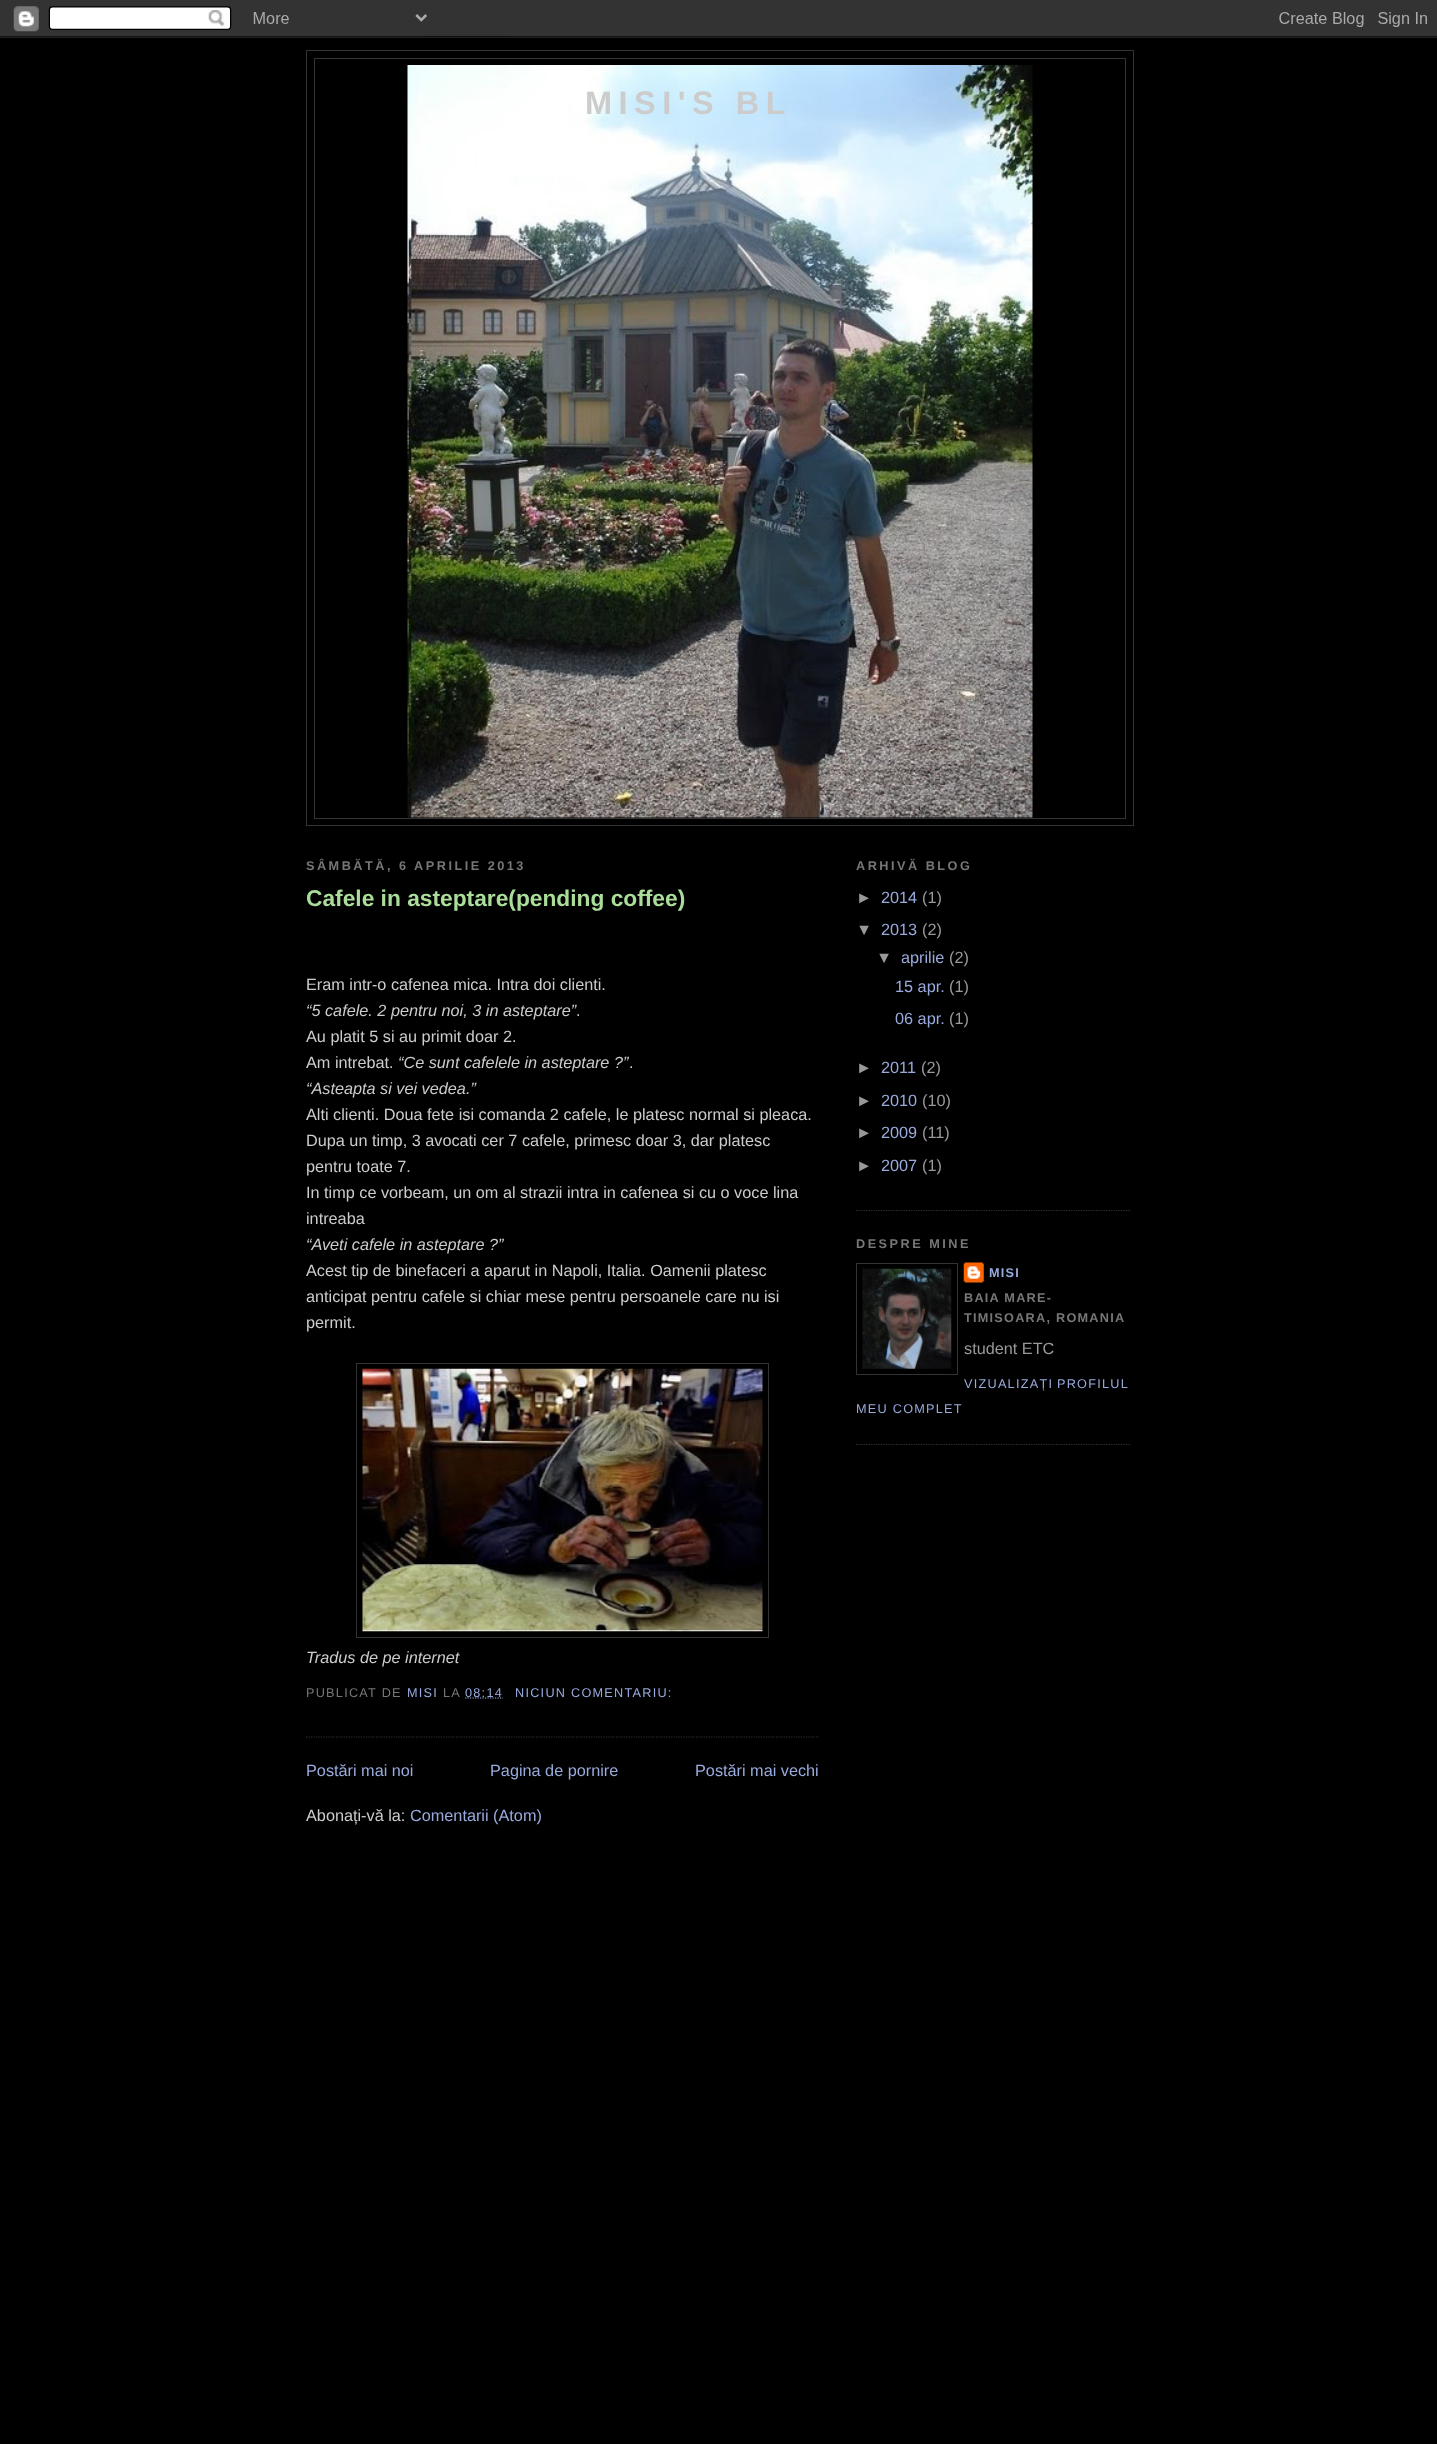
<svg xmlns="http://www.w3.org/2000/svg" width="1437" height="2444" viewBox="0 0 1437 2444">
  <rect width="100%" height="100%" fill="rgb(0,0,0)"/>
  <image x="0" y="0" width="1437" height="38" href="pic1.png"/>
  <rect x="306.5" y="50.5" width="827" height="775" fill="none" stroke="rgb(51,51,51)"/>
  <rect x="314.5" y="58.5" width="811" height="760" fill="none" stroke="rgb(51,51,51)"/>
  <image x="407" y="65" width="626" height="753" href="pic2.png"/>
  <text x="585" y="114" font-family="Liberation Sans" font-size="32.5" font-weight="bold" letter-spacing="6.5" fill="rgb(204,204,204)">MISI'S BL</text>
  <text x="306" y="870" font-family="Liberation Sans" font-size="12.7" font-weight="bold" letter-spacing="2.5" fill="rgb(119,119,119)">SÂMBĂTĂ, 6 APRILIE 2013</text>
  <path d="M306 1737H819" fill="none" stroke="rgb(51,51,51)" stroke-width="1.2" stroke-dasharray="1.25 1.25"/>
  <text x="306" y="906" font-family="Liberation Sans" font-size="22.75" font-weight="bold" fill="rgb(170,221,153)">Cafele in asteptare(pending coffee)</text>
  <text x="306" y="990" font-family="Liberation Sans" font-size="16.25" fill="rgb(204,204,204)">Eram intr-o cafenea mica. Intra doi clienti.</text>
  <text x="306" y="1016" font-family="Liberation Sans" font-size="16.25" font-style="italic" fill="rgb(204,204,204)">“5 cafele. 2 pentru noi, 3 in asteptare”</text>
  <g font-family="Liberation Sans" font-size="16.25" fill="rgb(204,204,204)">
    <text x="576" y="1016">.</text>
    <text>
      <tspan x="306" y="1042">Au platit 5 si au primit doar 2.</tspan>
      <tspan x="306" y="1068">Am intrebat.</tspan>
    </text>
  </g>
  <text x="398" y="1068" font-family="Liberation Sans" font-size="16.25" font-style="italic" fill="rgb(204,204,204)">“Ce sunt cafelele in asteptare ?”</text>
  <text x="629" y="1068" font-family="Liberation Sans" font-size="16.25" fill="rgb(204,204,204)">.</text>
  <text x="306" y="1094" font-family="Liberation Sans" font-size="16.25" font-style="italic" fill="rgb(204,204,204)">“Asteapta si vei vedea.”</text>
  <g font-family="Liberation Sans" font-size="16.25" fill="rgb(204,204,204)">
    <text>
      <tspan x="306" y="1120">Alti clienti. Doua fete isi comanda 2 cafele, le platesc normal si pleaca.</tspan>
      <tspan x="306" y="1146">Dupa un timp, 3 avocati cer 7 cafele, primesc doar 3, dar platesc</tspan>
      <tspan x="306" y="1172">pentru toate 7.</tspan>
      <tspan x="306" y="1198">In timp ce vorbeam, un om al strazii intra in cafenea si cu o voce lina</tspan>
      <tspan x="306" y="1224">intreaba</tspan>
    </text>
  </g>
  <text x="306" y="1250" font-family="Liberation Sans" font-size="16.25" font-style="italic" fill="rgb(204,204,204)">“Aveti cafele in asteptare ?”</text>
  <g font-family="Liberation Sans" font-size="16.25" fill="rgb(204,204,204)">
    <text>
      <tspan x="306" y="1276">Acest tip de binefaceri a aparut in Napoli, Italia. Oamenii platesc</tspan>
      <tspan x="306" y="1302">anticipat pentru cafele si chiar mese pentru persoanele care nu isi</tspan>
      <tspan x="306" y="1328">permit.</tspan>
    </text>
  </g>
  <rect x="356.5" y="1363.5" width="412" height="274" fill="none" stroke="rgb(51,51,51)"/>
  <image x="362" y="1368" width="401" height="264" href="pic3.png"/>
  <text x="306" y="1663" font-family="Liberation Sans" font-size="16.25" font-style="italic" fill="rgb(204,204,204)">Tradus de pe internet</text>
  <text x="306" y="1697" font-family="Liberation Sans" font-size="12.7" letter-spacing="1.25" fill="rgb(119,119,119)">PUBLICAT DE</text>
  <text x="407" y="1697" font-family="Liberation Sans" font-size="12.7" letter-spacing="1.25" fill="rgb(153,170,221)">MISI</text>
  <text x="443" y="1697" font-family="Liberation Sans" font-size="12.7" letter-spacing="1.25" fill="rgb(119,119,119)">LA</text>
  <path d="M465 1698H503" fill="none" stroke="rgb(153,170,221)" stroke-width="1.2" stroke-dasharray="1.25 1.25"/>
  <g font-family="Liberation Sans" font-size="12.7" letter-spacing="1.25" fill="rgb(153,170,221)">
    <text x="465" y="1697">08:14</text>
    <text x="515" y="1697">NICIUN COMENTARIU:</text>
  </g>
  <g font-family="Liberation Sans" font-size="16.25" fill="rgb(153,170,221)">
    <text x="306" y="1776">Postări mai noi</text>
    <text x="490" y="1776">Pagina de pornire</text>
    <text x="695" y="1776">Postări mai vechi</text>
  </g>
  <text x="306" y="1821" font-family="Liberation Sans" font-size="16.25" fill="rgb(204,204,204)">Abonați-vă la:</text>
  <text x="410" y="1821" font-family="Liberation Sans" font-size="16.25" fill="rgb(153,170,221)">Comentarii (Atom)</text>
  <path d="M856 1210.5H1131" fill="none" stroke="rgb(51,51,51)" stroke-width="1.2" stroke-dasharray="1.25 1.25"/>
  <text x="856" y="870" font-family="Liberation Sans" font-size="12.7" font-weight="bold" letter-spacing="2.5" fill="rgb(119,119,119)">ARHIVĂ BLOG</text>
  <text x="856" y="903" font-family="Liberation Sans" font-size="16.25" fill="rgb(153,153,153)">►</text>
  <text x="881" y="903" font-family="Liberation Sans" font-size="16.25" fill="rgb(153,170,221)">2014</text>
  <g font-family="Liberation Sans" font-size="16.25" fill="rgb(153,153,153)">
    <text x="922" y="903">(1)</text>
    <text x="856" y="935">▼</text>
  </g>
  <text x="881" y="935" font-family="Liberation Sans" font-size="16.25" fill="rgb(153,170,221)">2013</text>
  <g font-family="Liberation Sans" font-size="16.25" fill="rgb(153,153,153)">
    <text x="922" y="935">(2)</text>
    <text x="876" y="963">▼</text>
  </g>
  <text x="901" y="963" font-family="Liberation Sans" font-size="16.25" fill="rgb(153,170,221)">aprilie</text>
  <text x="949" y="963" font-family="Liberation Sans" font-size="16.25" fill="rgb(153,153,153)">(2)</text>
  <text x="895" y="992" font-family="Liberation Sans" font-size="16.25" fill="rgb(153,170,221)">15 apr.</text>
  <text x="949" y="992" font-family="Liberation Sans" font-size="16.25" fill="rgb(153,153,153)">(1)</text>
  <text x="895" y="1024" font-family="Liberation Sans" font-size="16.25" fill="rgb(153,170,221)">06 apr.</text>
  <g font-family="Liberation Sans" font-size="16.25" fill="rgb(153,153,153)">
    <text x="949" y="1024">(1)</text>
    <text x="856" y="1073">►</text>
  </g>
  <text x="881" y="1073" font-family="Liberation Sans" font-size="16.25" fill="rgb(153,170,221)">2011</text>
  <g font-family="Liberation Sans" font-size="16.25" fill="rgb(153,153,153)">
    <text x="921" y="1073">(2)</text>
    <text x="856" y="1106">►</text>
  </g>
  <text x="881" y="1106" font-family="Liberation Sans" font-size="16.25" fill="rgb(153,170,221)">2010</text>
  <g font-family="Liberation Sans" font-size="16.25" fill="rgb(153,153,153)">
    <text x="922" y="1106">(10)</text>
    <text x="856" y="1138">►</text>
  </g>
  <text x="881" y="1138" font-family="Liberation Sans" font-size="16.25" fill="rgb(153,170,221)">2009</text>
  <g font-family="Liberation Sans" font-size="16.25" fill="rgb(153,153,153)">
    <text x="922" y="1138">(11)</text>
    <text x="856" y="1171">►</text>
  </g>
  <text x="881" y="1171" font-family="Liberation Sans" font-size="16.25" fill="rgb(153,170,221)">2007</text>
  <text x="922" y="1171" font-family="Liberation Sans" font-size="16.25" fill="rgb(153,153,153)">(1)</text>
  <path d="M856 1444.5H1131" fill="none" stroke="rgb(51,51,51)" stroke-width="1.2" stroke-dasharray="1.25 1.25"/>
  <text x="856" y="1248" font-family="Liberation Sans" font-size="12.7" font-weight="bold" letter-spacing="2.5" fill="rgb(119,119,119)">DESPRE MINE</text>
  <rect x="856.5" y="1263.5" width="101" height="111" fill="none" stroke="rgb(51,51,51)"/>
  <image x="862" y="1268" width="90" height="101" href="pic4.png"/>
  <image x="963" y="1262" width="21" height="21" href="pic5.png"/>
  <text x="989" y="1277" font-family="Liberation Sans" font-size="12.7" font-weight="bold" letter-spacing="1.25" fill="rgb(153,170,221)">MISI</text>
  <g font-family="Liberation Sans" font-size="12.7" font-weight="bold" letter-spacing="1.25" fill="rgb(119,119,119)">
    <text>
      <tspan x="964" y="1302">BAIA MARE-</tspan>
      <tspan x="964" y="1322">TIMISOARA, ROMANIA</tspan>
    </text>
  </g>
  <text x="964" y="1354" font-family="Liberation Sans" font-size="16.25" fill="rgb(153,153,153)">student ETC</text>
  <g font-family="Liberation Sans" font-size="12.7" letter-spacing="1.25" fill="rgb(153,170,221)">
    <text x="964" y="1388" word-spacing="-1">VIZUALIZAȚI PROFILUL</text>
    <text x="856" y="1413">MEU COMPLET</text>
  </g>
</svg>
